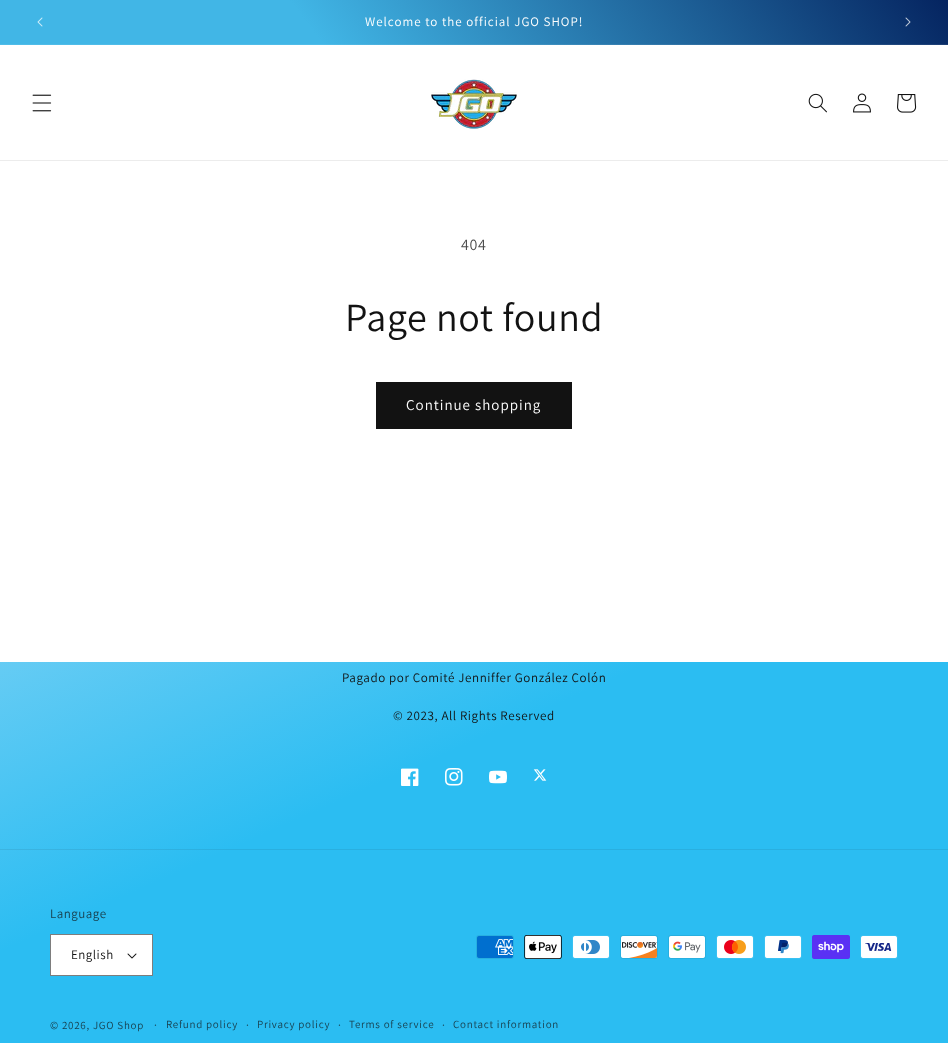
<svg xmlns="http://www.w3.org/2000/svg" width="948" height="1043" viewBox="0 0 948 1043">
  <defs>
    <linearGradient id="g1" gradientUnits="userSpaceOnUse" x1="-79" y1="938" x2="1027" y2="105"><stop offset="0.62" stop-color="rgb(65,182,230)"/><stop offset="1" stop-color="rgb(5,36,96)"/></linearGradient>
    <linearGradient id="g2" gradientUnits="userSpaceOnUse" x1="-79" y1="938" x2="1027" y2="105"><stop offset="0.62" stop-color="rgb(80,188,232)"/><stop offset="1" stop-color="rgb(25,54,109)"/></linearGradient>
    <linearGradient id="g3" gradientUnits="userSpaceOnUse" x1="746" y1="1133" x2="202" y2="-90"><stop offset="0.35" stop-color="rgb(43,189,242)"/><stop offset="0.88" stop-color="rgb(199,228,247)"/></linearGradient>
    <linearGradient id="g4" gradientUnits="userSpaceOnUse" x1="746" y1="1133" x2="202" y2="-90"><stop offset="0.35" stop-color="rgb(41,175,224)"/><stop offset="0.88" stop-color="rgb(185,211,229)"/></linearGradient>
  </defs>
  <rect width="100%" height="100%" fill="rgb(255,255,255)"/>
  <rect x="0" y="0" width="948" height="44" fill="url(#g1)"/>
  <rect x="0" y="44" width="948" height="1" fill="url(#g2)"/>
  <image x="37" y="17" width="6" height="10" href="pic1.png"/>
  <text x="365" y="26" font-family="Assistant" font-size="13" letter-spacing="1" fill="rgb(255,255,255)">Welcome to the official JGO SHOP!</text>
  <image x="905" y="17" width="6" height="10" href="pic2.png"/>
  <rect x="0" y="160" width="948" height="1" fill="rgb(236,236,236)"/>
  <image x="32" y="94" width="20" height="18" href="pic3.png"/>
  <image x="431" y="79" width="86" height="50" href="pic4.png"/>
  <image x="808" y="93" width="19" height="20" href="pic5.png"/>
  <image x="853" y="93" width="18" height="20" href="pic6.png"/>
  <image x="897" y="94" width="20" height="19" href="pic7.png"/>
  <text x="461" y="250" font-family="Assistant" font-size="16" letter-spacing="0.6" fill="rgb(77,77,77)">404</text>
  <text x="345" y="331" font-family="Assistant" font-size="40" letter-spacing="0.6" fill="rgb(18,18,18)">Page not found</text>
  <rect x="376" y="382" width="196" height="47" fill="rgb(18,18,18)"/>
  <text x="406" y="410" font-family="Assistant" font-size="15" letter-spacing="1" fill="rgb(255,255,255)">Continue shopping</text>
  <rect x="0" y="662" width="948" height="381" fill="url(#g3)"/>
  <rect x="0" y="849" width="948" height="1" fill="url(#g4)"/>
  <g font-family="Assistant" font-size="13" letter-spacing="0.6" fill="rgb(18,18,18)">
    <text x="342" y="682">Pagado por Comité Jenniffer González Colón</text>
    <text x="393" y="720">© 2023, All Rights Reserved</text>
  </g>
  <image x="401" y="768" width="18" height="18" href="pic8.png"/>
  <image x="445" y="768" width="18" height="18" href="pic9.png"/>
  <image x="489" y="770" width="18" height="14" href="pic10.png"/>
  <image x="533" y="769" width="14" height="12" href="pic11.png"/>
  <text x="50" y="918" font-family="Assistant" font-size="13" letter-spacing="0.5" fill="rgb(24,61,74)">Language</text>
  <rect x="51" y="935" width="101" height="40" fill="rgb(255,255,255)"/>
  <image x="127" y="953" width="10" height="6" href="pic12.png"/>
  <rect x="50.5" y="934.5" width="102" height="41" fill="none" stroke="rgb(125,125,125)"/>
  <text x="71" y="959" font-family="Assistant" font-size="13" letter-spacing="0.5" fill="rgb(18,18,18)">English</text>
  <image x="476" y="935" width="38" height="24" href="pic13.png"/>
  <image x="524" y="935" width="38" height="24" href="pic14.png"/>
  <image x="572" y="935" width="38" height="24" href="pic15.png"/>
  <image x="620" y="935" width="38" height="24" href="pic16.png"/>
  <image x="668" y="935" width="38" height="24" href="pic17.png"/>
  <image x="716" y="935" width="38" height="24" href="pic18.png"/>
  <image x="764" y="935" width="38" height="24" href="pic19.png"/>
  <image x="812" y="935" width="38" height="24" href="pic20.png"/>
  <image x="860" y="935" width="38" height="24" href="pic21.png"/>
  <text x="50" y="1029" font-family="Assistant" font-size="11" letter-spacing="0.75" fill="rgb(24,61,74)">© 2026, JGO Shop</text>
  <text x="154" y="1029" font-family="Assistant" font-size="12" letter-spacing="0.75" fill="rgb(24,61,74)">·</text>
  <text x="166" y="1028" font-family="Assistant" font-size="11" letter-spacing="0.75" fill="rgb(24,61,74)">Refund policy</text>
  <text x="246" y="1029" font-family="Assistant" font-size="12" letter-spacing="0.75" fill="rgb(24,61,74)">·</text>
  <text x="257" y="1028" font-family="Assistant" font-size="11" letter-spacing="0.75" fill="rgb(24,61,74)">Privacy policy</text>
  <text x="338" y="1029" font-family="Assistant" font-size="12" letter-spacing="0.75" fill="rgb(24,61,74)">·</text>
  <text x="349" y="1028" font-family="Assistant" font-size="11" letter-spacing="0.75" fill="rgb(24,61,74)">Terms of service</text>
  <text x="442" y="1029" font-family="Assistant" font-size="12" letter-spacing="0.75" fill="rgb(24,61,74)">·</text>
  <text x="453" y="1028" font-family="Assistant" font-size="11" letter-spacing="0.75" fill="rgb(24,61,74)">Contact information</text>
</svg>
